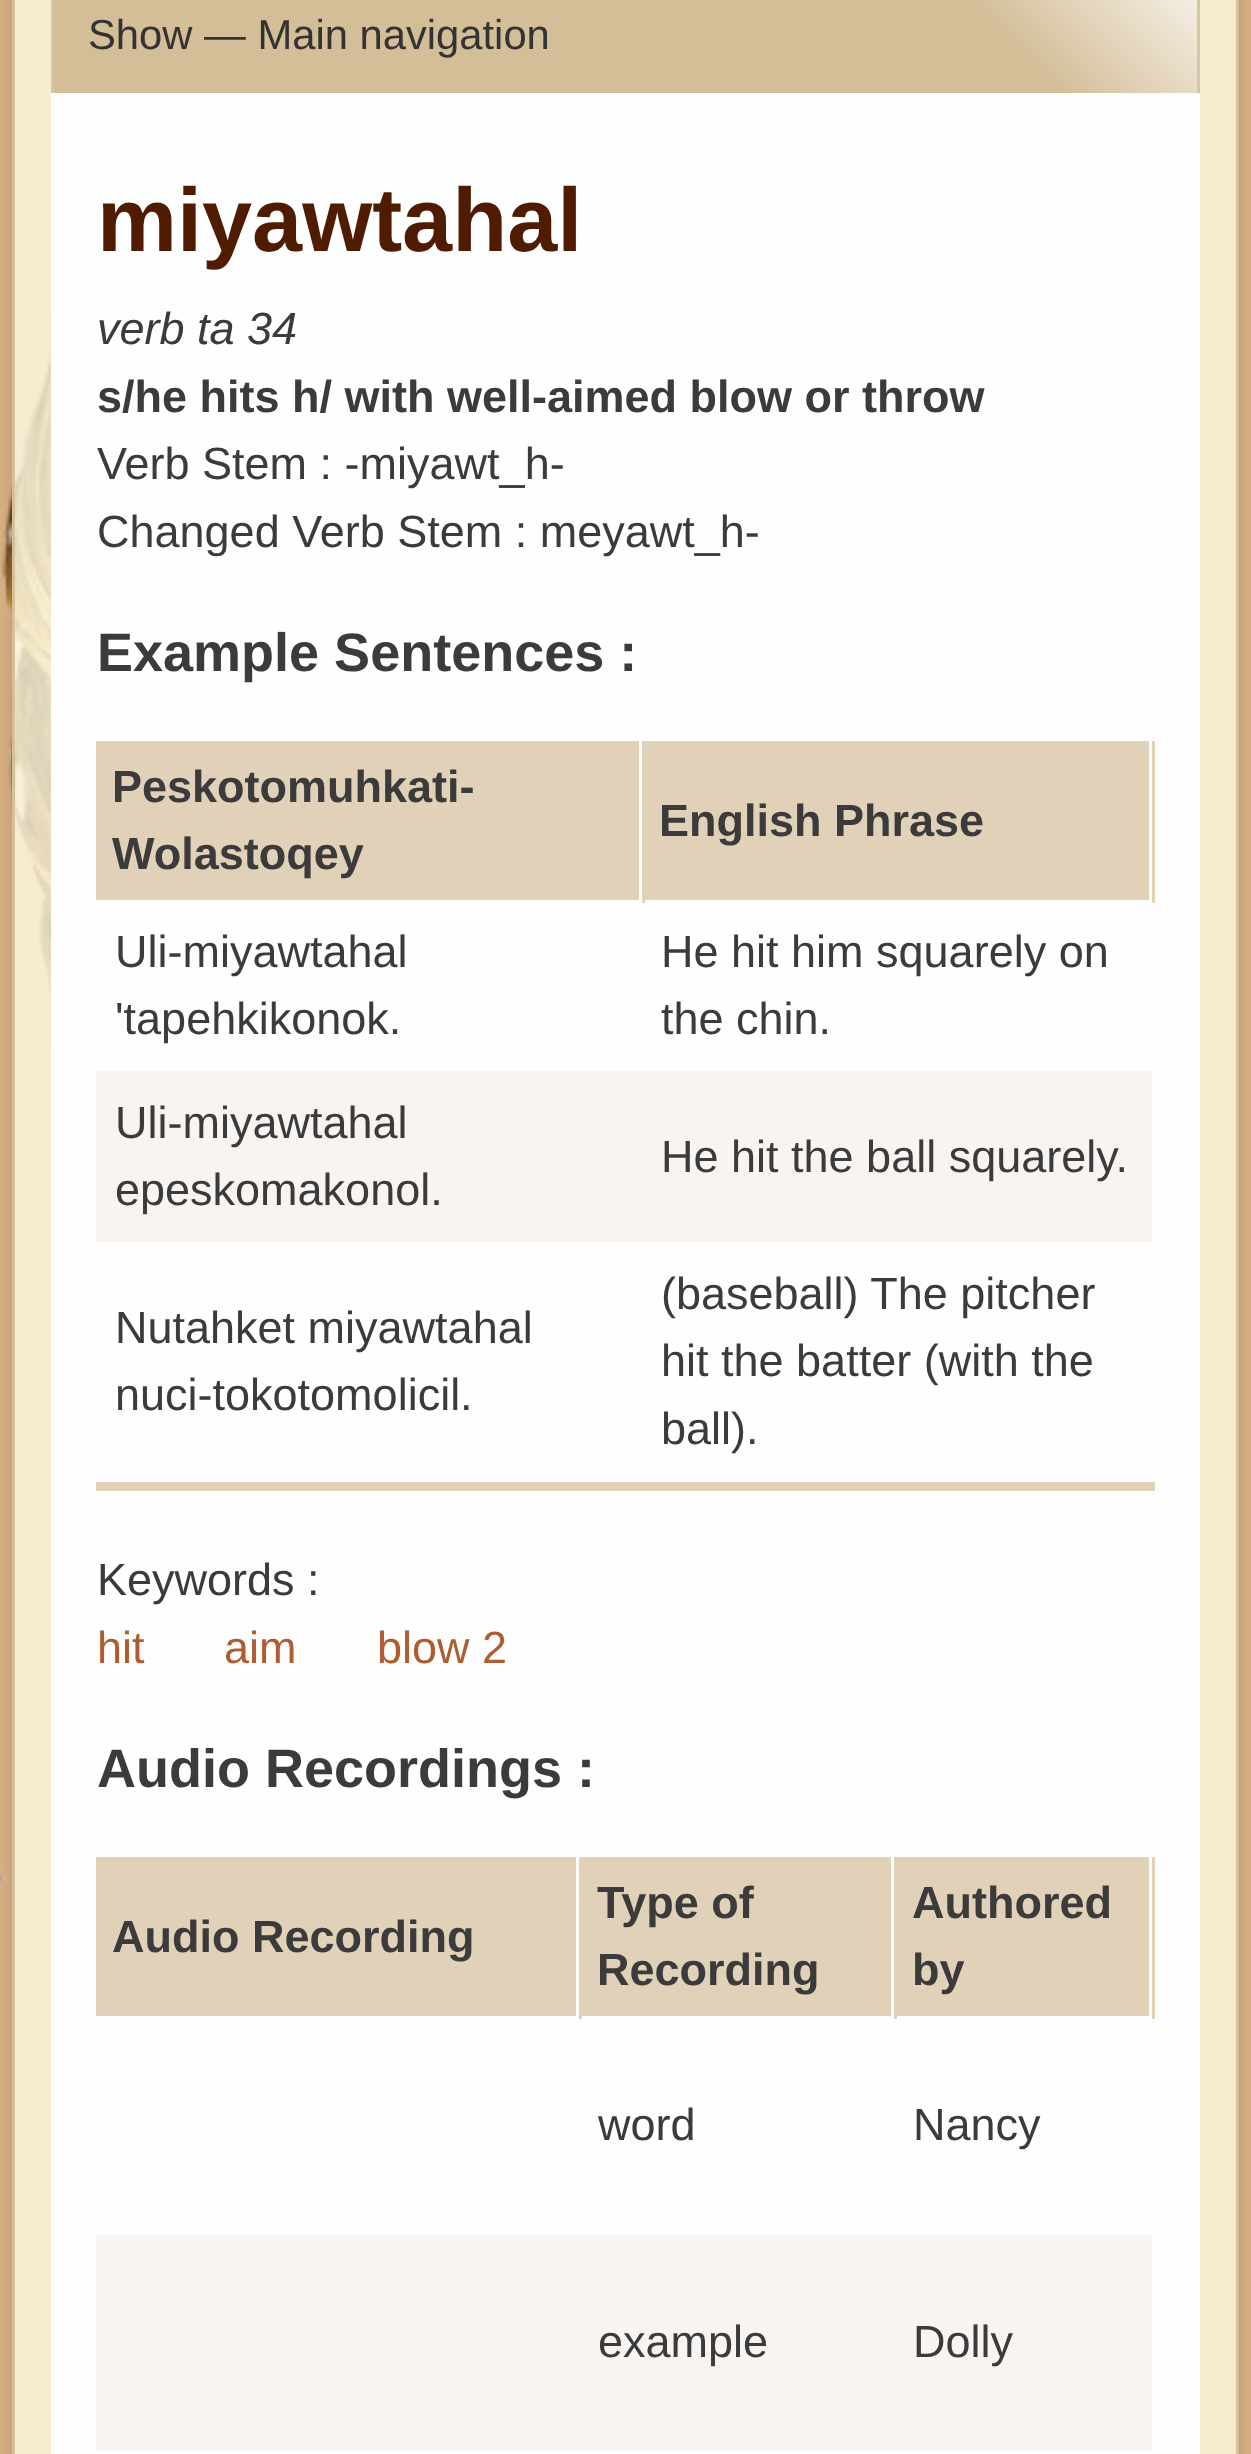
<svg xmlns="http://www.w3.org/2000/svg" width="1251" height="2454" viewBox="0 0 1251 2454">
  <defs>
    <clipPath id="clip1"><path d="M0 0H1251V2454H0ZM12-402H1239V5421H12Z" clip-rule="evenodd"/></clipPath>
    <linearGradient id="g1" gradientUnits="userSpaceOnUse" x1="311" y1="349" x2="941" y2="-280"><stop offset="0.8" stop-color="rgb(212,190,152)"/><stop offset="1" stop-color="rgb(247,243,235)"/></linearGradient>
  </defs>
  <rect width="100%" height="100%" fill="rgb(217,176,132)"/>
  <rect x="15" y="0" width="1221" height="2454" fill="rgb(247,236,208)"/>
  <image x="0" y="0" width="51" height="2151" href="pic1.png"/>
  <g clip-path="url(#clip1)">
    <rect x="12" y="-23" width="1227" height="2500" fill="rgba(0,0,0,0.15)" filter="blur(7.5px)"/>
  </g>
  <rect x="13.5" y="-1.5" width="1224" height="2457" fill="none" stroke="rgb(212,192,155)" stroke-width="3"/>
  <rect x="54" y="0" width="1143" height="93" fill="url(#g1)"/>
  <rect x="1197" y="0" width="3" height="93" fill="rgb(216,197,166)"/>
  <rect x="51" y="0" width="3" height="93" fill="rgb(216,197,166)"/>
  <text x="88" y="49" font-family="Liberation Sans" font-size="41.75" fill="rgb(51,51,51)">Show — Main navigation</text>
  <rect x="51" y="93" width="1149" height="2361" fill="rgb(254,254,254)"/>
  <text x="97" y="251" font-family="Liberation Sans" font-size="90" font-weight="bold" fill="rgb(79,28,2)">miyawtahal</text>
  <text x="97" y="344" font-family="Liberation Sans" font-size="45" font-style="italic" fill="rgb(59,59,59)">verb ta 34</text>
  <text x="97" y="412" font-family="Liberation Sans" font-size="45" font-weight="bold" fill="rgb(59,59,59)">s/he hits h/ with well-aimed blow or throw</text>
  <g font-family="Liberation Sans" font-size="45" fill="rgb(59,59,59)">
    <text>
      <tspan x="97" y="479">Verb Stem : -miyawt_h-</tspan>
      <tspan x="97" y="547">Changed Verb Stem : meyawt_h-</tspan>
    </text>
  </g>
  <text x="97" y="671" font-family="Liberation Sans" font-size="54" font-weight="bold" fill="rgb(59,59,59)">Example Sentences :</text>
  <rect x="96" y="1482" width="1059" height="9" fill="rgb(224,209,184)"/>
  <rect x="96" y="741" width="543" height="159" fill="rgb(224,209,184)"/>
  <rect x="642" y="741" width="3" height="162" fill="rgb(224,209,184)"/>
  <g font-family="Liberation Sans" font-size="45" font-weight="bold" fill="rgb(59,59,59)">
    <text>
      <tspan x="112" y="802">Peskotomuhkati-</tspan>
      <tspan x="112" y="869">Wolastoqey</tspan>
    </text>
  </g>
  <rect x="645" y="741" width="504" height="159" fill="rgb(224,209,184)"/>
  <rect x="1152" y="741" width="3" height="162" fill="rgb(224,209,184)"/>
  <text x="659" y="836" font-family="Liberation Sans" font-size="45" font-weight="bold" fill="rgb(59,59,59)">English Phrase</text>
  <g font-family="Liberation Sans" font-size="45" fill="rgb(59,59,59)">
    <text>
      <tspan x="115" y="967">Uli-miyawtahal</tspan>
      <tspan x="115" y="1034">'tapehkikonok.</tspan>
    </text>
    <text>
      <tspan x="661" y="967">He hit him squarely on</tspan>
      <tspan x="661" y="1034">the chin.</tspan>
    </text>
  </g>
  <rect x="96" y="1071" width="1056" height="171" fill="rgb(248,244,242)"/>
  <g font-family="Liberation Sans" font-size="45" fill="rgb(59,59,59)">
    <text>
      <tspan x="115" y="1138">Uli-miyawtahal</tspan>
      <tspan x="115" y="1205">epeskomakonol.</tspan>
    </text>
    <text x="661" y="1172">He hit the ball squarely.</text>
    <text>
      <tspan x="115" y="1343">Nutahket miyawtahal</tspan>
      <tspan x="115" y="1410">nuci-tokotomolicil.</tspan>
    </text>
    <text>
      <tspan x="661" y="1309">(baseball) The pitcher</tspan>
      <tspan x="661" y="1376">hit the batter (with the</tspan>
      <tspan x="661" y="1444">ball).</tspan>
    </text>
    <text x="97" y="1595">Keywords :</text>
  </g>
  <g font-family="Liberation Sans" font-size="45" fill="rgb(174,92,50)">
    <text x="97" y="1663">hit</text>
    <text x="224" y="1663">aim</text>
    <text x="377" y="1663">blow 2</text>
  </g>
  <text x="97" y="1787" font-family="Liberation Sans" font-size="54" font-weight="bold" fill="rgb(59,59,59)">Audio Recordings :</text>
  <rect x="96" y="1857" width="480" height="159" fill="rgb(224,209,184)"/>
  <rect x="579" y="1857" width="3" height="162" fill="rgb(224,209,184)"/>
  <text x="112" y="1952" font-family="Liberation Sans" font-size="45" font-weight="bold" fill="rgb(59,59,59)">Audio Recording</text>
  <rect x="582" y="1857" width="309" height="159" fill="rgb(224,209,184)"/>
  <rect x="894" y="1857" width="3" height="162" fill="rgb(224,209,184)"/>
  <g font-family="Liberation Sans" font-size="45" font-weight="bold" fill="rgb(59,59,59)">
    <text>
      <tspan x="597" y="1918">Type of</tspan>
      <tspan x="597" y="1985">Recording</tspan>
    </text>
  </g>
  <rect x="897" y="1857" width="252" height="159" fill="rgb(224,209,184)"/>
  <rect x="1152" y="1857" width="3" height="162" fill="rgb(224,209,184)"/>
  <g font-family="Liberation Sans" font-size="45" font-weight="bold" fill="rgb(59,59,59)">
    <text>
      <tspan x="912" y="1918">Authored</tspan>
      <tspan x="912" y="1985">by</tspan>
    </text>
  </g>
  <g font-family="Liberation Sans" font-size="45" fill="rgb(59,59,59)">
    <text x="598" y="2140">word</text>
    <text x="913" y="2140">Nancy</text>
  </g>
  <rect x="96" y="2235" width="1056" height="216" fill="rgb(248,244,242)"/>
  <g font-family="Liberation Sans" font-size="45" fill="rgb(59,59,59)">
    <text x="598" y="2357">example</text>
    <text x="913" y="2357">Dolly</text>
  </g>
</svg>
